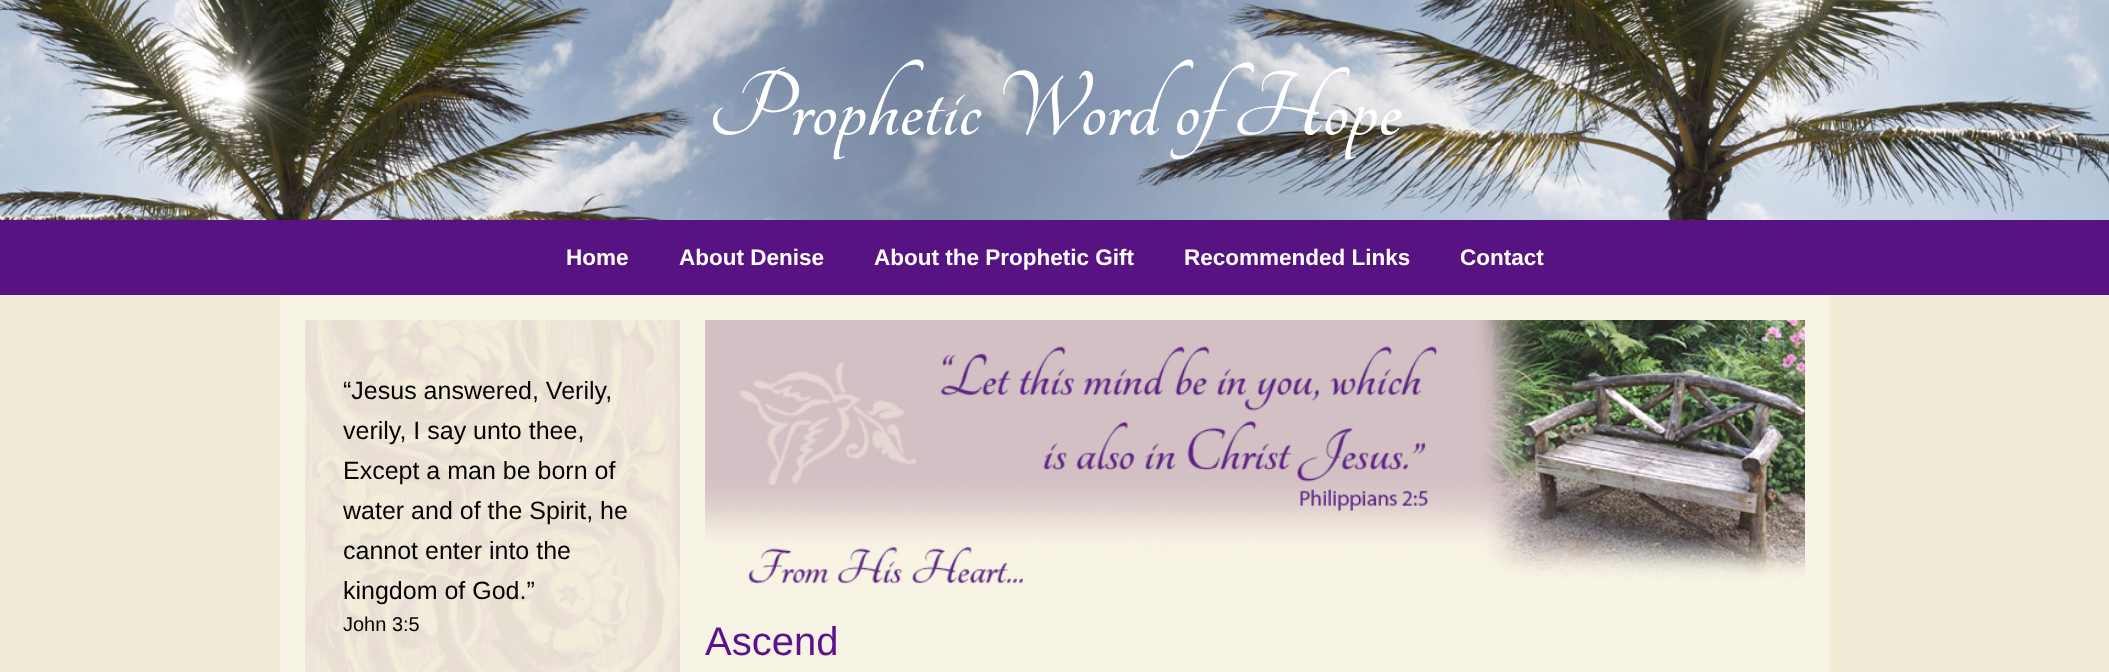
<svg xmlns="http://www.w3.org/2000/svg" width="2109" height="672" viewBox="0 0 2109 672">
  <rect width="100%" height="100%" fill="rgb(242,235,213)"/>
  <image x="0" y="0" width="2109" height="220" href="pic1.png"/>
  <text x="708" y="135" font-family="Tangerine" font-size="100" font-weight="bold" fill="rgb(255,255,255)">Prophetic Word of Hope</text>
  <rect x="0" y="220" width="2109" height="75" fill="rgb(86,19,129)"/>
  <g font-family="Liberation Sans" font-size="22.5" font-weight="bold" fill="rgb(255,255,255)">
    <text x="566" y="265">Home</text>
    <text x="679" y="265">About Denise</text>
    <text x="874" y="265">About the Prophetic Gift</text>
    <text x="1184" y="265">Recommended Links</text>
    <text x="1460" y="265">Contact</text>
  </g>
  <rect x="280" y="295" width="1550" height="377" fill="rgb(247,243,229)"/>
  <image x="305" y="320" width="375" height="352" href="pic2.png"/>
  <g font-family="Liberation Sans" font-size="25" fill="rgb(2,2,2)">
    <text>
      <tspan x="343" y="399">“Jesus answered, Verily,</tspan>
      <tspan x="343" y="439">verily, I say unto thee,</tspan>
      <tspan x="343" y="479">Except a man be born of</tspan>
      <tspan x="343" y="519">water and of the Spirit, he</tspan>
      <tspan x="343" y="559">cannot enter into the</tspan>
      <tspan x="343" y="599">kingdom of God.”</tspan>
    </text>
  </g>
  <text x="343" y="631" font-family="Liberation Sans" font-size="20" fill="rgb(2,2,2)">John 3:5</text>
  <image x="705" y="320" width="1100" height="264" href="pic3.png"/>
  <text x="705" y="655" font-family="Liberation Sans" font-size="40" fill="rgb(92,17,141)">Ascend</text>
</svg>
